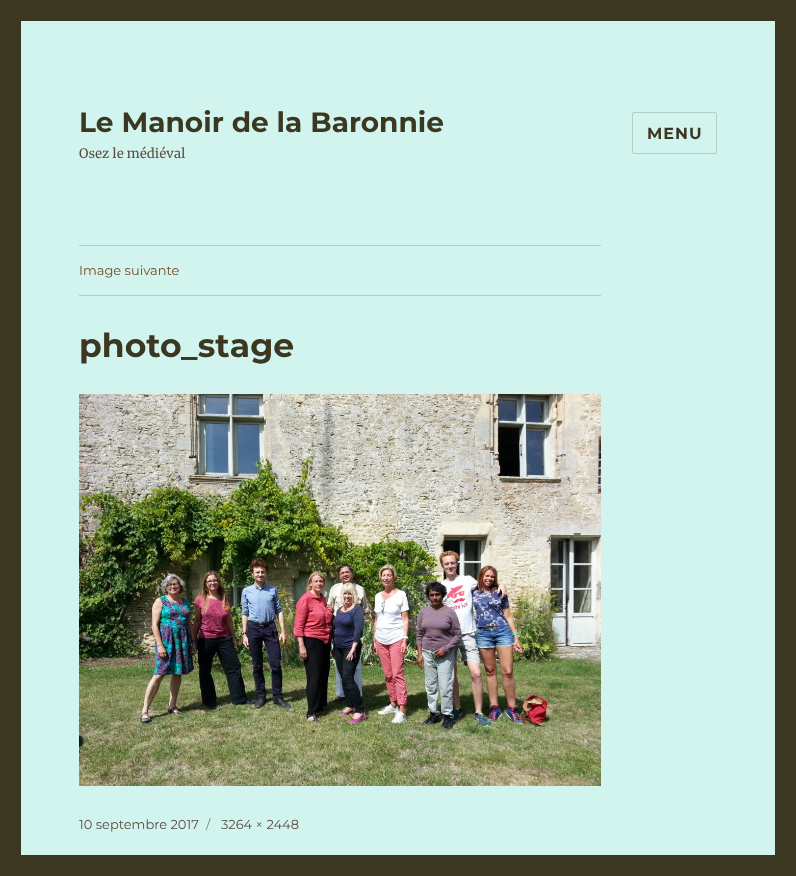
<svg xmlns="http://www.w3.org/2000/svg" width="796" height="876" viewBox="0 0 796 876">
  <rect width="100%" height="100%" fill="rgb(59,55,33)"/>
  <rect x="21" y="21" width="754" height="834" fill="rgb(210,244,239)"/>
  <text x="79" y="132" font-family="Montserrat" font-size="28" font-weight="100" fill="rgb(59,55,33)">Le Manoir de la Baronnie</text>
  <text x="79" y="158" font-family="Merriweather" font-size="13" fill="rgb(91,77,62)">Osez le médiéval</text>
  <rect x="632.5" y="112.5" width="84" height="41" rx="1.5" fill="none" stroke="rgb(180,206,198)"/>
  <text x="647" y="139" font-family="Montserrat" font-size="16" font-weight="100" letter-spacing="1" fill="rgb(59,55,33)">MENU</text>
  <rect x="79" y="245" width="522" height="1" fill="rgb(180,206,198)"/>
  <rect x="79" y="295" width="522" height="1" fill="rgb(180,206,198)"/>
  <text x="79" y="275" font-family="'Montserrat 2'" font-size="13" font-weight="100" fill="rgb(119,78,36)">Image suivante</text>
  <text x="79" y="357" font-family="Montserrat" font-size="33" font-weight="100" fill="rgb(59,55,33)">photo_stage</text>
  <image x="79" y="394" width="522" height="392" href="pic1.png"/>
  <text x="79" y="829" font-family="'Montserrat 2'" font-size="13" font-weight="100" fill="rgb(91,77,62)">10 septembre 2017</text>
  <text x="206" y="829" font-family="'Montserrat 2'" font-size="13" font-weight="100" fill="rgb(127,127,115)">/</text>
  <text x="221" y="829" font-family="'Montserrat 2'" font-size="13" font-weight="100" fill="rgb(91,77,62)">3264 × 2448</text>
</svg>
